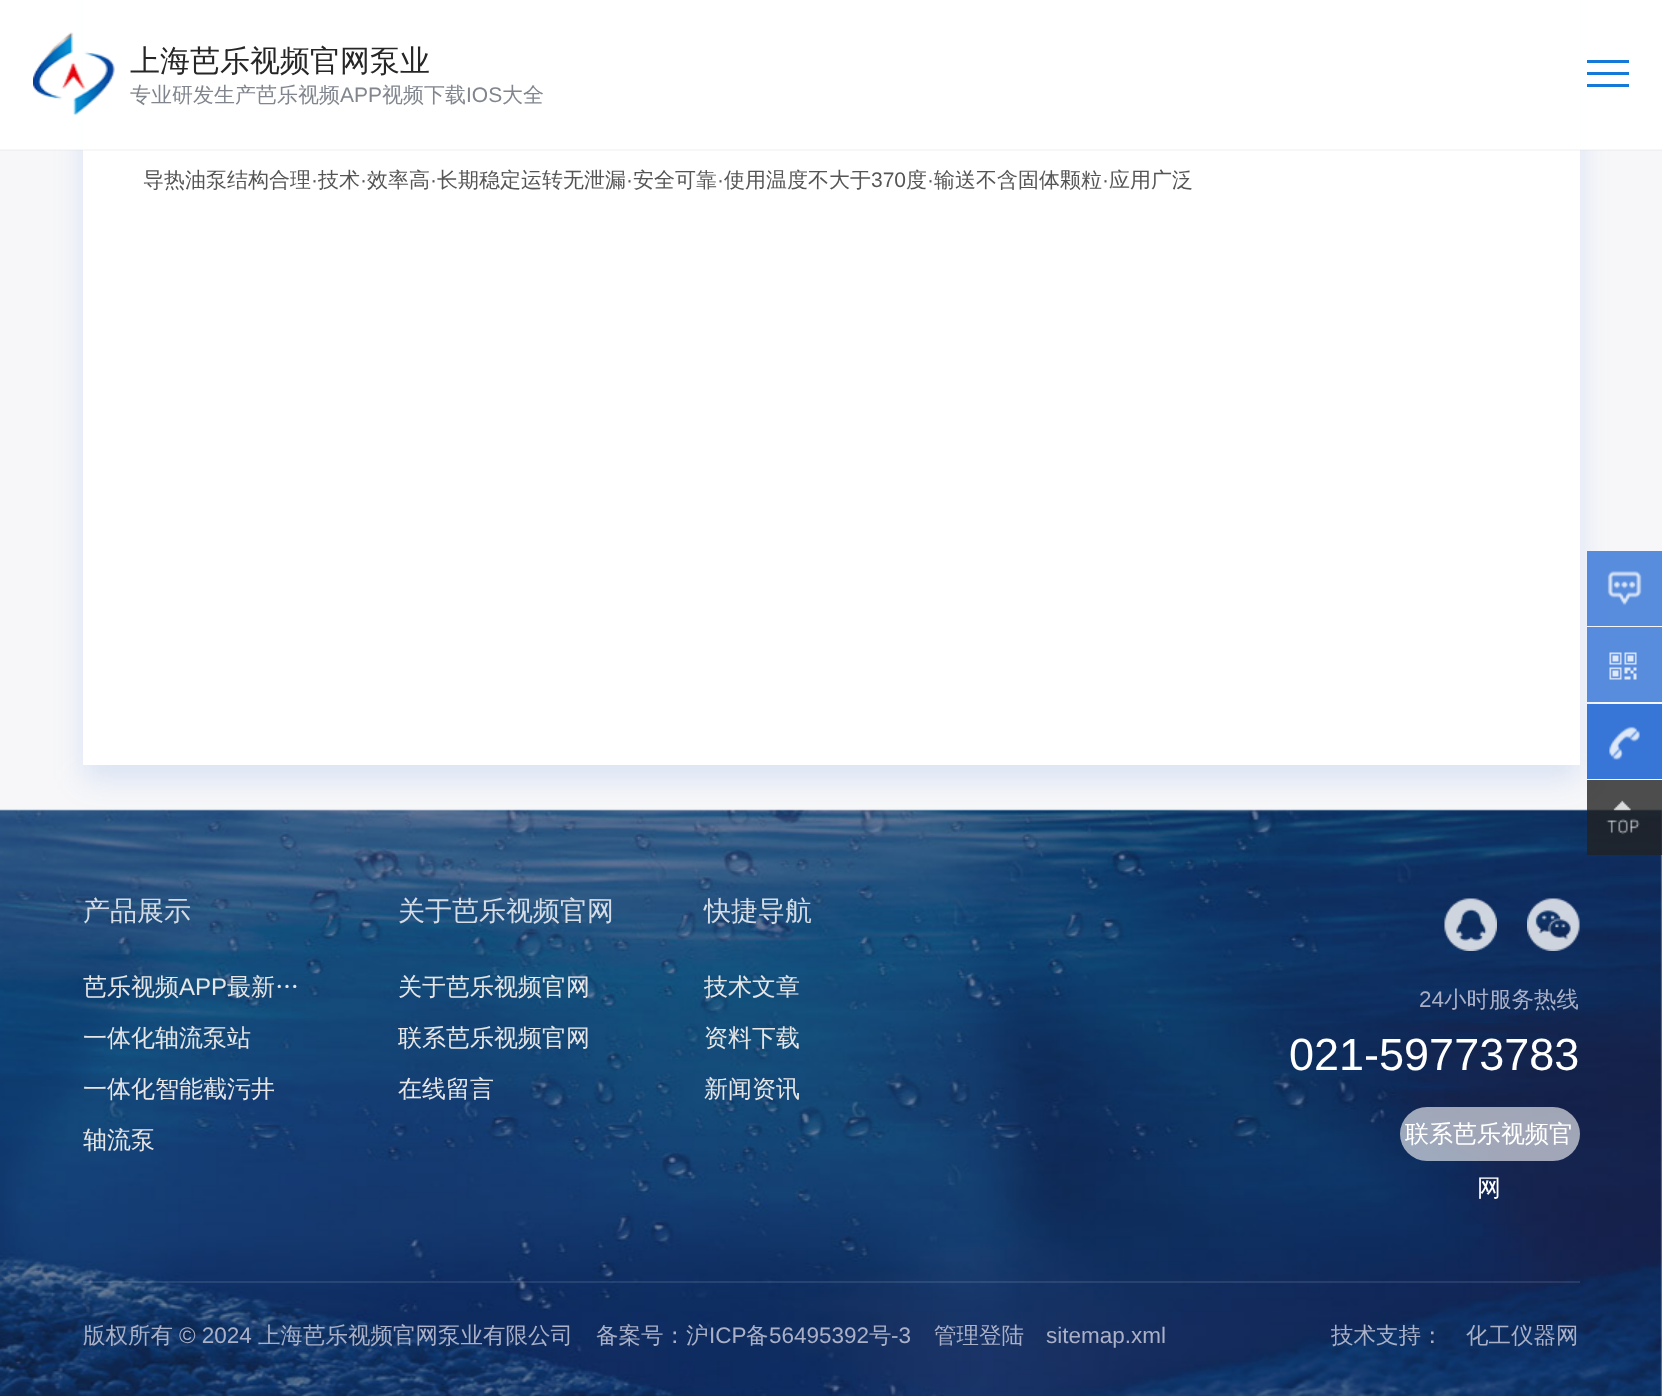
<svg xmlns="http://www.w3.org/2000/svg" width="1662" height="1396" viewBox="0 0 1662 1396">
  <rect width="100%" height="100%" fill="rgb(255,255,255)"/>
  <rect x="0" y="0" width="1662" height="810" fill="rgb(247,247,249)"/>
  <rect x="83" y="-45" width="1497" height="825" fill="rgba(47,113,214,0.15)" filter="blur(15px)"/>
  <rect x="83" y="0" width="1497" height="765" fill="rgb(255,255,255)"/>
  <rect x="0" y="0" width="1662" height="150" fill="rgba(255,255,255,0.95)"/>
  <rect x="0" y="149" width="1662" height="2" fill="rgba(217,217,217,0.2)"/>
  <image x="33" y="32" width="82" height="83" href="pic1.png"/>
  <text x="130" y="71" font-family="WenQuanYi Zen Hei" font-size="30" font-weight="500" fill="rgb(38,38,38)">上海芭乐视频官网泵业</text>
  <text x="130" y="102" font-family="WenQuanYi Zen Hei" font-size="21" font-weight="500" fill="rgb(129,134,142)">专业研发生产芭乐视频</text>
  <text x="340" y="102" font-family="Liberation Sans" font-size="21" fill="rgb(129,134,142)">APP</text>
  <text x="382" y="102" font-family="WenQuanYi Zen Hei" font-size="21" font-weight="500" fill="rgb(129,134,142)">视频下载</text>
  <text x="466" y="102" font-family="Liberation Sans" font-size="21" fill="rgb(129,134,142)">IOS</text>
  <text x="502" y="102" font-family="WenQuanYi Zen Hei" font-size="21" font-weight="500" fill="rgb(129,134,142)">大全</text>
  <rect x="1587" y="60" width="42" height="3" fill="rgb(21,121,216)"/>
  <rect x="1587" y="72" width="42" height="3" fill="rgb(21,121,216)"/>
  <rect x="1587" y="84" width="42" height="3" fill="rgb(21,121,216)"/>
  <text x="143" y="187" font-family="WenQuanYi Zen Hei" font-size="21" font-weight="500" fill="rgb(85,85,85)">导热油泵结构合理</text>
  <text x="311" y="187" font-family="Liberation Sans" font-size="21" fill="rgb(85,85,85)">·</text>
  <text x="318" y="187" font-family="WenQuanYi Zen Hei" font-size="21" font-weight="500" fill="rgb(85,85,85)">技术</text>
  <text x="360" y="187" font-family="Liberation Sans" font-size="21" fill="rgb(85,85,85)">·</text>
  <text x="367" y="187" font-family="WenQuanYi Zen Hei" font-size="21" font-weight="500" fill="rgb(85,85,85)">效率高</text>
  <text x="430" y="187" font-family="Liberation Sans" font-size="21" fill="rgb(85,85,85)">·</text>
  <text x="437" y="187" font-family="WenQuanYi Zen Hei" font-size="21" font-weight="500" fill="rgb(85,85,85)">长期稳定运转无泄漏</text>
  <text x="626" y="187" font-family="Liberation Sans" font-size="21" fill="rgb(85,85,85)">·</text>
  <text x="633" y="187" font-family="WenQuanYi Zen Hei" font-size="21" font-weight="500" fill="rgb(85,85,85)">安全可靠</text>
  <text x="717" y="187" font-family="Liberation Sans" font-size="21" fill="rgb(85,85,85)">·</text>
  <text x="724" y="187" font-family="WenQuanYi Zen Hei" font-size="21" font-weight="500" fill="rgb(85,85,85)">使用温度不大于</text>
  <text x="871" y="187" font-family="Liberation Sans" font-size="21" fill="rgb(85,85,85)">370</text>
  <text x="906" y="187" font-family="WenQuanYi Zen Hei" font-size="21" font-weight="500" fill="rgb(85,85,85)">度</text>
  <text x="927" y="187" font-family="Liberation Sans" font-size="21" fill="rgb(85,85,85)">·</text>
  <text x="934" y="187" font-family="WenQuanYi Zen Hei" font-size="21" font-weight="500" fill="rgb(85,85,85)">输送不含固体颗粒</text>
  <text x="1102" y="187" font-family="Liberation Sans" font-size="21" fill="rgb(85,85,85)">·</text>
  <text x="1109" y="187" font-family="WenQuanYi Zen Hei" font-size="21" font-weight="500" fill="rgb(85,85,85)">应用广泛</text>
  <rect x="1587" y="551" width="75" height="75" fill="rgba(47,113,214,0.8)"/>
  <image x="1607" y="570" width="35" height="36" href="pic2.png"/>
  <rect x="1587" y="627" width="75" height="75" fill="rgba(47,113,214,0.8)"/>
  <image x="1609" y="652" width="28" height="28" href="pic3.png"/>
  <rect x="1587" y="704" width="75" height="75" fill="rgba(47,113,214,0.8)"/>
  <image x="1609" y="726" width="31" height="34" href="pic4.png"/>
  <rect x="1587" y="704" width="75" height="75" fill="rgba(47,113,214,0.8)"/>
  <image x="1609" y="726" width="31" height="34" href="pic5.png"/>
  <image x="0" y="809" width="1662" height="587" href="pic7.png"/>
  <rect x="1587" y="780" width="75" height="75" fill="rgba(34,34,34,0.8)"/>
  <image x="1606" y="800" width="34" height="35" href="pic6.png"/>
  <text x="83" y="920" font-family="WenQuanYi Zen Hei" font-size="27" font-weight="500" fill="rgb(212,220,229)">产品展示</text>
  <text x="83" y="995" font-family="WenQuanYi Zen Hei" font-size="24" font-weight="500" fill="rgb(230,230,230)">芭乐视频</text>
  <text x="179" y="995" font-family="Liberation Sans" font-size="24" fill="rgb(230,230,230)">APP</text>
  <g font-family="WenQuanYi Zen Hei" font-size="24" font-weight="500" fill="rgb(230,230,230)">
    <text x="227" y="995">最新…</text>
    <text x="83" y="1046">一体化轴流泵站</text>
    <text x="83" y="1097">一体化智能截污井</text>
    <text x="83" y="1148">轴流泵</text>
  </g>
  <text x="398" y="920" font-family="WenQuanYi Zen Hei" font-size="27" font-weight="500" fill="rgb(212,220,229)">关于芭乐视频官网</text>
  <g font-family="WenQuanYi Zen Hei" font-size="24" font-weight="500" fill="rgb(230,230,230)">
    <text x="398" y="995">关于芭乐视频官网</text>
    <text x="398" y="1046">联系芭乐视频官网</text>
    <text x="398" y="1097">在线留言</text>
  </g>
  <text x="704" y="920" font-family="WenQuanYi Zen Hei" font-size="27" font-weight="500" fill="rgb(212,220,229)">快捷导航</text>
  <g font-family="WenQuanYi Zen Hei" font-size="24" font-weight="500" fill="rgb(230,230,230)">
    <text x="704" y="995">技术文章</text>
    <text x="704" y="1046">资料下载</text>
    <text x="704" y="1097">新闻资讯</text>
  </g>
  <image x="1444" y="898" width="53" height="53" href="pic8.png"/>
  <image x="1527" y="898" width="53" height="53" href="pic9.png"/>
  <text x="1419" y="1007" font-family="Liberation Sans" font-size="22.5" fill="rgb(169,176,199)">24</text>
  <text x="1444" y="1007" font-family="WenQuanYi Zen Hei" font-size="22.5" font-weight="500" fill="rgb(169,176,199)">小时服务热线</text>
  <text x="1289" y="1070" font-family="Liberation Sans" font-size="45" fill="rgb(255,255,255)">021-59773783</text>
  <rect x="1400" y="1107" width="180" height="54" rx="27" fill="rgba(255,255,255,0.6)"/>
  <g font-family="WenQuanYi Zen Hei" font-size="24" font-weight="500" fill="rgb(255,255,255)">
    <text x="1405" y="1142">联系芭乐视频官</text>
    <text x="1477" y="1196">网</text>
  </g>
  <rect x="83" y="1281" width="1497" height="2" fill="rgba(255,255,255,0.1)"/>
  <text x="83" y="1343" font-family="WenQuanYi Zen Hei" font-size="22.5" font-weight="500" fill="rgb(169,176,199)">版权所有</text>
  <text x="179" y="1343" font-family="Liberation Sans" font-size="22.5" fill="rgb(169,176,199)">© 2024</text>
  <g font-family="WenQuanYi Zen Hei" font-size="22.5" font-weight="500" fill="rgb(169,176,199)">
    <text x="258" y="1343">上海芭乐视频官网泵业有限公司</text>
    <text x="596" y="1343">备案号：沪</text>
  </g>
  <text x="709" y="1343" font-family="Liberation Sans" font-size="22.5" fill="rgb(169,176,199)">ICP</text>
  <text x="746" y="1343" font-family="WenQuanYi Zen Hei" font-size="22.5" font-weight="500" fill="rgb(169,176,199)">备</text>
  <text x="769" y="1343" font-family="Liberation Sans" font-size="22.5" fill="rgb(169,176,199)">56495392</text>
  <text x="869" y="1343" font-family="WenQuanYi Zen Hei" font-size="22.5" font-weight="500" fill="rgb(169,176,199)">号</text>
  <text x="891" y="1343" font-family="Liberation Sans" font-size="22.5" fill="rgb(169,176,199)">-3</text>
  <text x="934" y="1343" font-family="WenQuanYi Zen Hei" font-size="22.5" font-weight="500" fill="rgb(169,176,199)">管理登陆</text>
  <text x="1046" y="1343" font-family="Liberation Sans" font-size="22.5" fill="rgb(169,176,199)">sitemap.xml</text>
  <g font-family="WenQuanYi Zen Hei" font-size="22.5" font-weight="500" fill="rgb(169,176,199)">
    <text x="1331" y="1343">技术支持：</text>
    <text x="1466" y="1343">化工仪器网</text>
  </g>
</svg>
